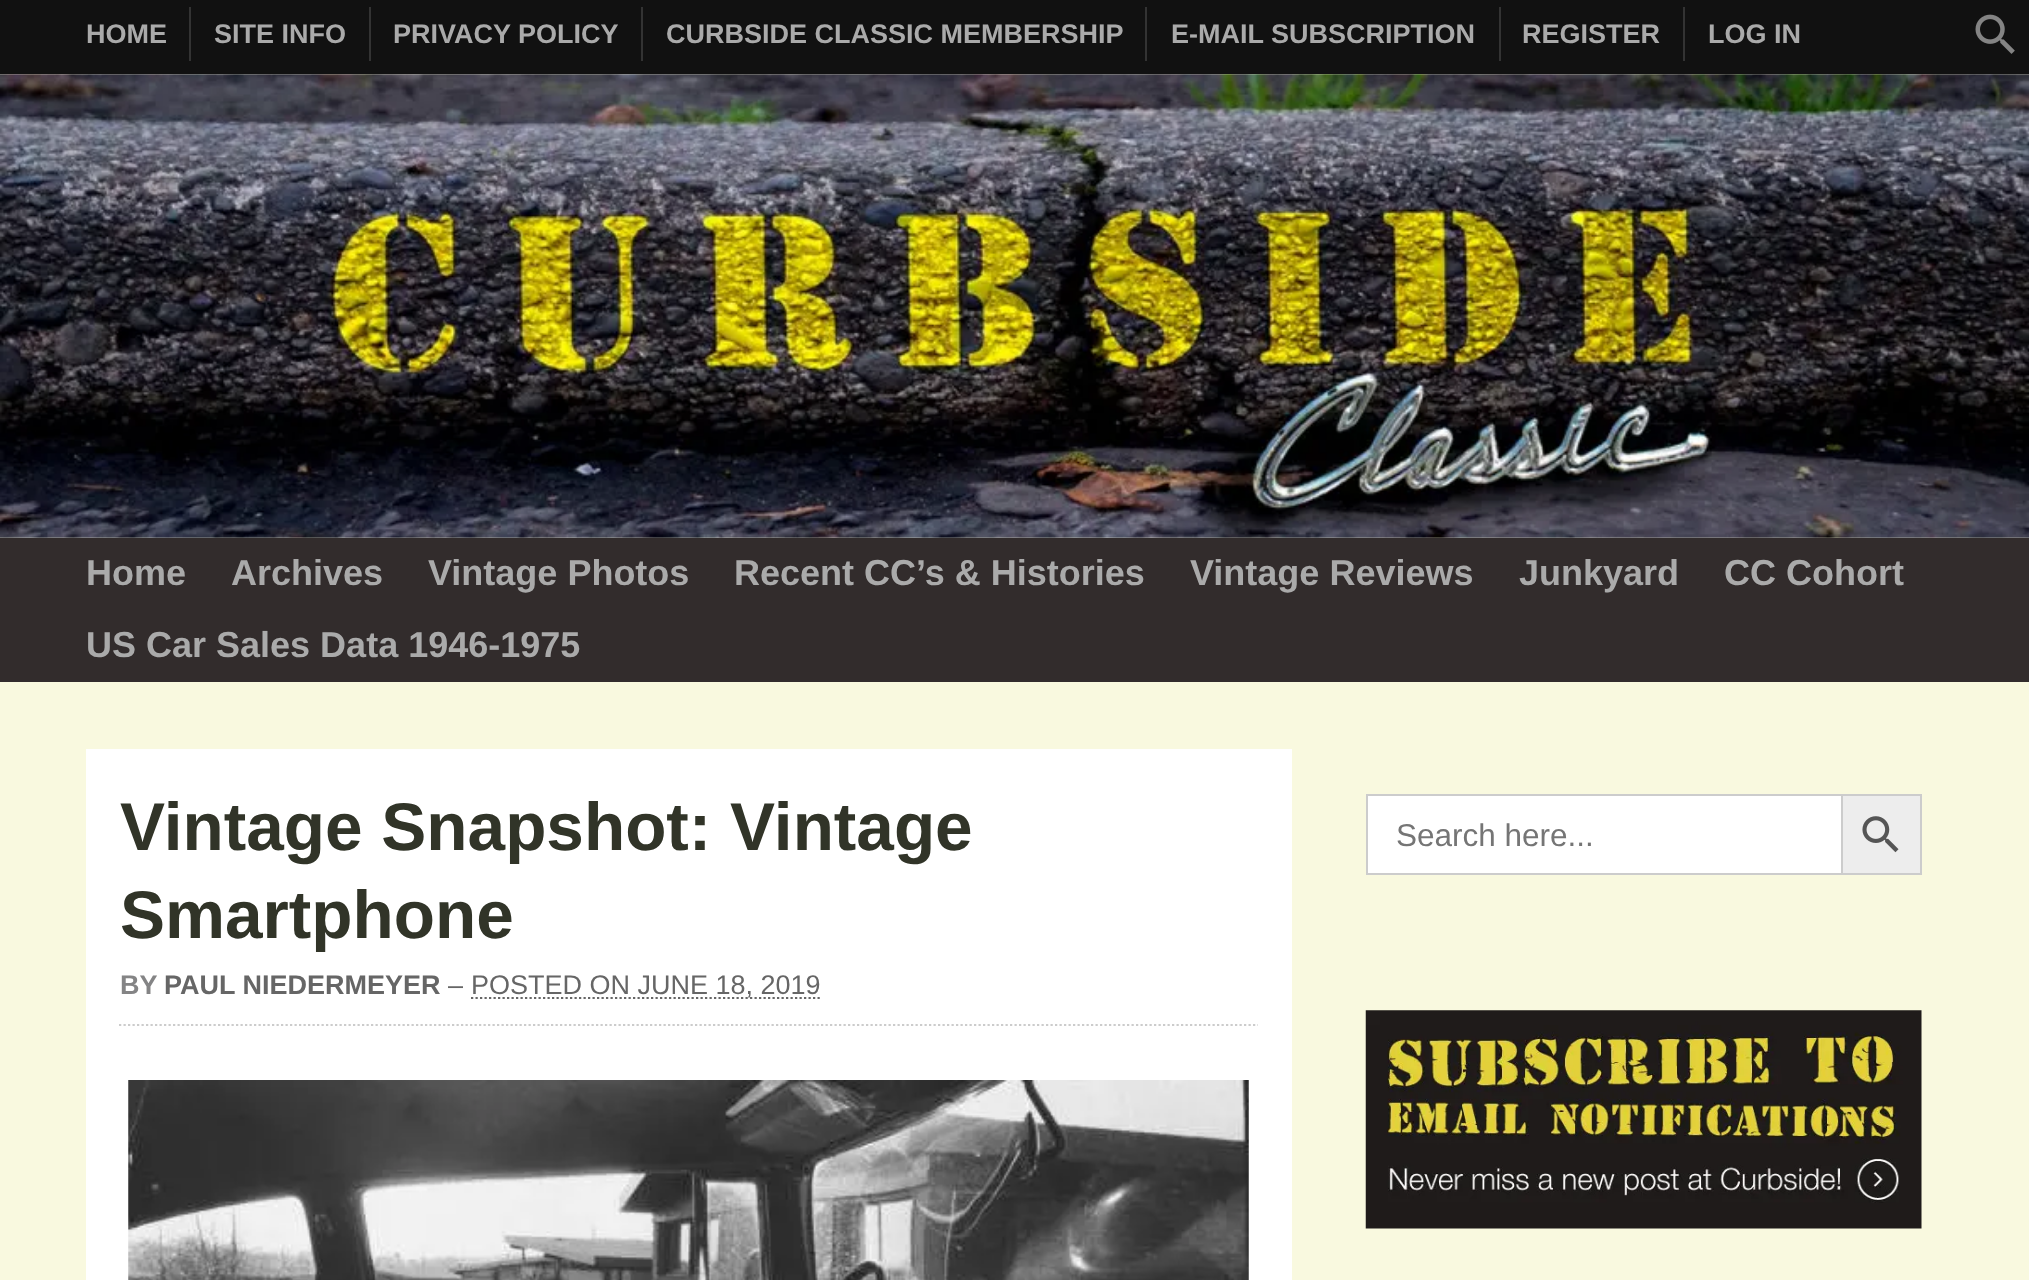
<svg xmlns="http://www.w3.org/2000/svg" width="2029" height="1280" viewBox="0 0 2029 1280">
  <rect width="100%" height="100%" fill="rgb(249,249,223)"/>
  <rect x="0" y="0" width="2029" height="74" fill="rgb(17,17,17)"/>
  <rect x="189" y="7" width="2" height="54" fill="rgb(51,51,51)"/>
  <text x="86" y="43" font-family="Liberation Sans" font-size="27" font-weight="bold" fill="rgb(170,170,170)">HOME</text>
  <rect x="369" y="7" width="2" height="54" fill="rgb(51,51,51)"/>
  <text x="214" y="43" font-family="Liberation Sans" font-size="27" font-weight="bold" fill="rgb(170,170,170)">SITE INFO</text>
  <rect x="641" y="7" width="2" height="54" fill="rgb(51,51,51)"/>
  <text x="393" y="43" font-family="Liberation Sans" font-size="27" font-weight="bold" fill="rgb(170,170,170)">PRIVACY POLICY</text>
  <rect x="1145" y="7" width="2" height="54" fill="rgb(51,51,51)"/>
  <text x="666" y="43" font-family="Liberation Sans" font-size="27" font-weight="bold" fill="rgb(170,170,170)">CURBSIDE CLASSIC MEMBERSHIP</text>
  <rect x="1499" y="7" width="2" height="54" fill="rgb(51,51,51)"/>
  <text x="1171" y="43" font-family="Liberation Sans" font-size="27" font-weight="bold" fill="rgb(170,170,170)">E-MAIL SUBSCRIPTION</text>
  <rect x="1683" y="7" width="2" height="54" fill="rgb(51,51,51)"/>
  <g font-family="Liberation Sans" font-size="27" font-weight="bold" fill="rgb(170,170,170)">
    <text x="1522" y="43">REGISTER</text>
    <text x="1708" y="43">LOG IN</text>
  </g>
  <image x="0" y="74" width="2029" height="464" href="pic1.png"/>
  <rect x="0" y="538" width="2029" height="144" fill="rgb(50,44,44)"/>
  <g font-family="Liberation Sans" font-size="36" font-weight="bold" fill="rgb(170,170,170)">
    <text x="86" y="585">Home</text>
    <text x="231" y="585">Archives</text>
    <text x="428" y="585">Vintage Photos</text>
    <text x="734" y="585">Recent CC’s &amp; Histories</text>
    <text x="1190" y="585">Vintage Reviews</text>
    <text x="1519" y="585">Junkyard</text>
    <text x="1724" y="585">CC Cohort</text>
    <text x="86" y="657">US Car Sales Data 1946-1975</text>
  </g>
  <rect x="86" y="749" width="1206" height="531" fill="rgb(255,255,255)"/>
  <g font-family="Liberation Sans" font-size="67.5" font-weight="bold" fill="rgb(49,52,40)">
    <text>
      <tspan x="120" y="850">Vintage Snapshot: Vintage</tspan>
      <tspan x="120" y="938">Smartphone</tspan>
    </text>
  </g>
  <path d="M119 1025H1258" fill="none" stroke="rgb(204,204,204)" stroke-width="2.2" stroke-dasharray="2.25 2.25"/>
  <text x="120" y="994" font-family="Liberation Sans" font-size="27" font-weight="bold" fill="rgb(132,132,133)">BY</text>
  <text x="164" y="994" font-family="Liberation Sans" font-size="27" font-weight="bold" fill="rgb(102,102,102)">PAUL NIEDERMEYER</text>
  <text x="448" y="994" font-family="Liberation Sans" font-size="27" fill="rgb(102,102,102)">–</text>
  <path d="M471 998H820.5" fill="none" stroke="rgb(102,102,102)" stroke-width="2.2" stroke-dasharray="2.25 2.25"/>
  <text x="471" y="994" font-family="Liberation Sans" font-size="27" fill="rgb(102,102,102)">POSTED ON JUNE 18, 2019</text>
  <image x="128" y="1080" width="1121" height="200" href="pic2.png"/>
  <rect x="1368" y="796" width="473" height="77" fill="rgb(255,255,255)"/>
  <rect x="1366" y="794" width="475" height="2" fill="rgb(204,204,204)"/>
  <rect x="1366" y="873" width="475" height="2" fill="rgb(204,204,204)"/>
  <rect x="1366" y="794" width="2" height="81" fill="rgb(204,204,204)"/>
  <text x="1396" y="846" font-family="Liberation Sans" font-size="31.5" fill="rgb(117,117,117)">Search here...</text>
  <rect x="1842" y="795" width="79" height="79" fill="rgb(237,237,237)" stroke="rgb(204,204,204)" stroke-width="2"/>
  <image x="1862" y="816" width="37" height="37" href="pic3.png"/>
  <image x="1365" y="1010" width="557" height="219" href="pic4.png"/>
  <image x="1975" y="14" width="40" height="40" href="pic5.png"/>
</svg>
